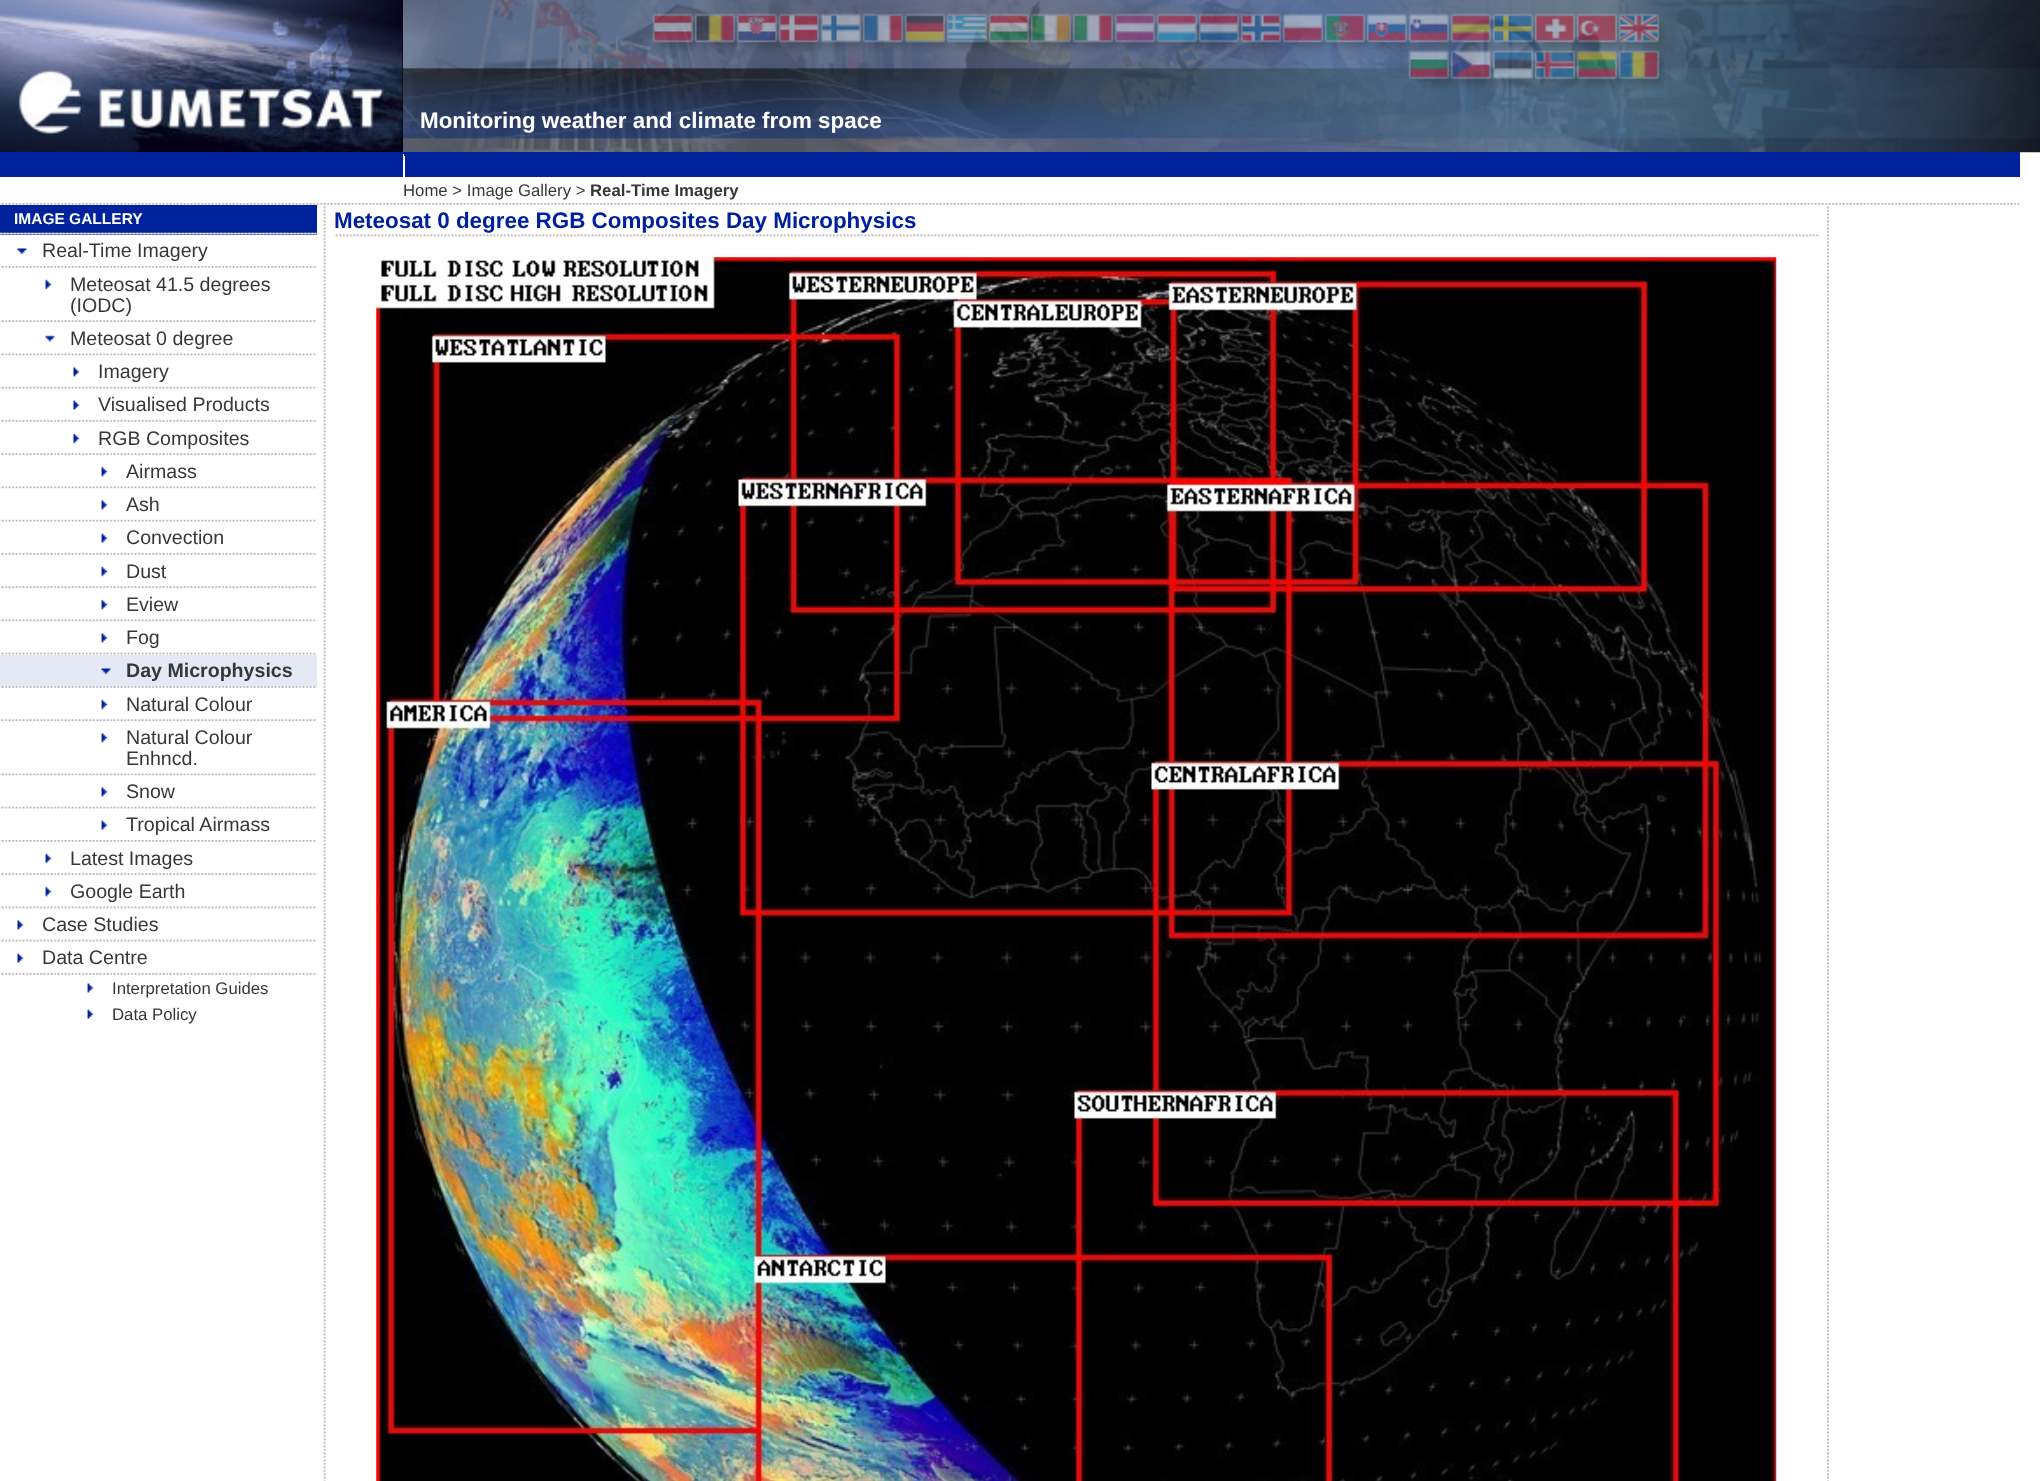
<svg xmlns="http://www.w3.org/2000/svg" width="2040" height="1481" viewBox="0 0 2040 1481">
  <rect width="100%" height="100%" fill="rgb(255,255,255)"/>
  <image x="403" y="0" width="1637" height="153" href="pic1.png"/>
  <rect x="402" y="0" width="1" height="152" fill="rgb(0,0,0)"/>
  <image x="0" y="0" width="403" height="152" href="pic2.png"/>
  <text x="420" y="128" font-family="Liberation Sans" font-size="22.4" font-weight="bold" fill="rgb(255,255,255)">Monitoring weather and climate from space</text>
  <rect x="0" y="152" width="2020" height="25" fill="rgb(0,34,156)"/>
  <rect x="403" y="154" width="2" height="23" fill="rgb(255,255,255)"/>
  <rect x="404" y="154" width="1" height="2" fill="rgb(0,34,156)"/>
  <text x="403" y="196" font-family="Liberation Sans" font-size="16.75" fill="rgb(55,55,55)">Home &gt; Image Gallery &gt;</text>
  <text x="590" y="196" font-family="Liberation Sans" font-size="16.75" font-weight="bold" fill="rgb(55,55,55)">Real-Time Imagery</text>
  <image x="323" y="204" width="3" height="1277" href="pic20.png"/>
  <image x="1827" y="204" width="2" height="1277" href="pic23.png"/>
  <image x="0" y="203" width="2020" height="2" href="pic3.png"/>
  <rect x="0" y="205" width="317" height="30" fill="rgb(0,34,156)"/>
  <image x="0" y="232" width="317" height="3" href="pic4.png"/>
  <text x="14" y="224" font-family="Liberation Sans" font-size="15.5" font-weight="bold" fill="rgb(255,255,255)">IMAGE GALLERY</text>
  <image x="0" y="266" width="317" height="2" href="pic5.png"/>
  <image x="17" y="248" width="10" height="7" href="pic6.png"/>
  <text x="42" y="257" font-family="Liberation Sans" font-size="19.6" fill="rgb(55,55,55)">Real-Time Imagery</text>
  <image x="0" y="320" width="317" height="2" href="pic7.png"/>
  <image x="45" y="279" width="7" height="11" href="pic8.png"/>
  <g font-family="Liberation Sans" font-size="19.6" fill="rgb(55,55,55)">
    <text>
      <tspan x="70" y="291">Meteosat 41.5 degrees</tspan>
      <tspan x="70" y="312">(IODC)</tspan>
    </text>
  </g>
  <image x="0" y="353" width="317" height="3" href="pic9.png"/>
  <image x="45" y="335" width="10" height="7" href="pic10.png"/>
  <text x="70" y="345" font-family="Liberation Sans" font-size="19.6" fill="rgb(55,55,55)">Meteosat 0 degree</text>
  <image x="0" y="386" width="317" height="3" href="pic11.png"/>
  <image x="73" y="367" width="7" height="10" href="pic12.png"/>
  <text x="98" y="378" font-family="Liberation Sans" font-size="19.6" fill="rgb(55,55,55)">Imagery</text>
  <image x="0" y="420" width="317" height="2" href="pic5.png"/>
  <image x="73" y="400" width="7" height="10" href="pic13.png"/>
  <text x="98" y="411" font-family="Liberation Sans" font-size="19.6" fill="rgb(55,55,55)">Visualised Products</text>
  <image x="0" y="453" width="317" height="2" href="pic7.png"/>
  <image x="73" y="433" width="7" height="11" href="pic14.png"/>
  <text x="98" y="445" font-family="Liberation Sans" font-size="19.6" fill="rgb(55,55,55)">RGB Composites</text>
  <image x="0" y="486" width="317" height="3" href="pic9.png"/>
  <image x="101" y="466" width="7" height="11" href="pic15.png"/>
  <text x="126" y="478" font-family="Liberation Sans" font-size="19.6" fill="rgb(55,55,55)">Airmass</text>
  <image x="0" y="519" width="317" height="3" href="pic11.png"/>
  <image x="101" y="500" width="7" height="10" href="pic16.png"/>
  <text x="126" y="511" font-family="Liberation Sans" font-size="19.6" fill="rgb(55,55,55)">Ash</text>
  <image x="0" y="553" width="317" height="2" href="pic5.png"/>
  <image x="101" y="533" width="7" height="10" href="pic17.png"/>
  <text x="126" y="544" font-family="Liberation Sans" font-size="19.6" fill="rgb(55,55,55)">Convection</text>
  <image x="0" y="586" width="317" height="2" href="pic7.png"/>
  <image x="101" y="566" width="7" height="11" href="pic8.png"/>
  <text x="126" y="578" font-family="Liberation Sans" font-size="19.6" fill="rgb(55,55,55)">Dust</text>
  <image x="0" y="619" width="317" height="3" href="pic9.png"/>
  <image x="101" y="599" width="7" height="11" href="pic15.png"/>
  <text x="126" y="611" font-family="Liberation Sans" font-size="19.6" fill="rgb(55,55,55)">Eview</text>
  <image x="0" y="652" width="317" height="3" href="pic11.png"/>
  <image x="101" y="633" width="7" height="10" href="pic16.png"/>
  <text x="126" y="644" font-family="Liberation Sans" font-size="19.6" fill="rgb(55,55,55)">Fog</text>
  <rect x="0" y="655" width="317" height="33" fill="rgb(229,232,245)"/>
  <image x="0" y="686" width="317" height="2" href="pic18.png"/>
  <image x="101" y="668" width="10" height="7" href="pic19.png"/>
  <text x="126" y="677" font-family="Liberation Sans" font-size="19.6" font-weight="bold" fill="rgb(55,55,55)">Day Microphysics</text>
  <image x="0" y="719" width="317" height="2" href="pic7.png"/>
  <image x="101" y="699" width="7" height="11" href="pic8.png"/>
  <text x="126" y="711" font-family="Liberation Sans" font-size="19.6" fill="rgb(55,55,55)">Natural Colour</text>
  <image x="0" y="773" width="317" height="3" href="pic9.png"/>
  <image x="101" y="732" width="7" height="11" href="pic15.png"/>
  <g font-family="Liberation Sans" font-size="19.6" fill="rgb(55,55,55)">
    <text>
      <tspan x="126" y="744">Natural Colour</tspan>
      <tspan x="126" y="765">Enhncd.</tspan>
    </text>
  </g>
  <image x="0" y="806" width="317" height="3" href="pic11.png"/>
  <image x="101" y="787" width="7" height="10" href="pic16.png"/>
  <text x="126" y="798" font-family="Liberation Sans" font-size="19.6" fill="rgb(55,55,55)">Snow</text>
  <image x="0" y="840" width="317" height="2" href="pic5.png"/>
  <image x="101" y="820" width="7" height="10" href="pic17.png"/>
  <text x="126" y="831" font-family="Liberation Sans" font-size="19.6" fill="rgb(55,55,55)">Tropical Airmass</text>
  <image x="0" y="873" width="317" height="2" href="pic7.png"/>
  <image x="45" y="853" width="7" height="11" href="pic8.png"/>
  <text x="70" y="865" font-family="Liberation Sans" font-size="19.6" fill="rgb(55,55,55)">Latest Images</text>
  <image x="0" y="906" width="317" height="3" href="pic9.png"/>
  <image x="45" y="886" width="7" height="11" href="pic15.png"/>
  <text x="70" y="898" font-family="Liberation Sans" font-size="19.6" fill="rgb(55,55,55)">Google Earth</text>
  <image x="0" y="939" width="317" height="3" href="pic11.png"/>
  <image x="17" y="920" width="7" height="10" href="pic12.png"/>
  <text x="42" y="931" font-family="Liberation Sans" font-size="19.6" fill="rgb(55,55,55)">Case Studies</text>
  <image x="0" y="973" width="317" height="2" href="pic5.png"/>
  <image x="17" y="953" width="7" height="10" href="pic13.png"/>
  <text x="42" y="964" font-family="Liberation Sans" font-size="19.6" fill="rgb(55,55,55)">Data Centre</text>
  <image x="87" y="983" width="7" height="10" href="pic16.png"/>
  <text x="112" y="994" font-family="Liberation Sans" font-size="16.75" fill="rgb(55,55,55)">Interpretation Guides</text>
  <image x="87" y="1009" width="7" height="10" href="pic17.png"/>
  <text x="112" y="1020" font-family="Liberation Sans" font-size="16.75" fill="rgb(55,55,55)">Data Policy</text>
  <text x="334" y="228" font-family="Liberation Sans" font-size="22.4" font-weight="bold" fill="rgb(0,33,159)">Meteosat 0 degree RGB Composites Day Microphysics</text>
  <image x="334" y="234" width="1485" height="3" href="pic21.png"/>
  <image x="376" y="257" width="1401" height="1224" href="pic22.png"/>
</svg>
